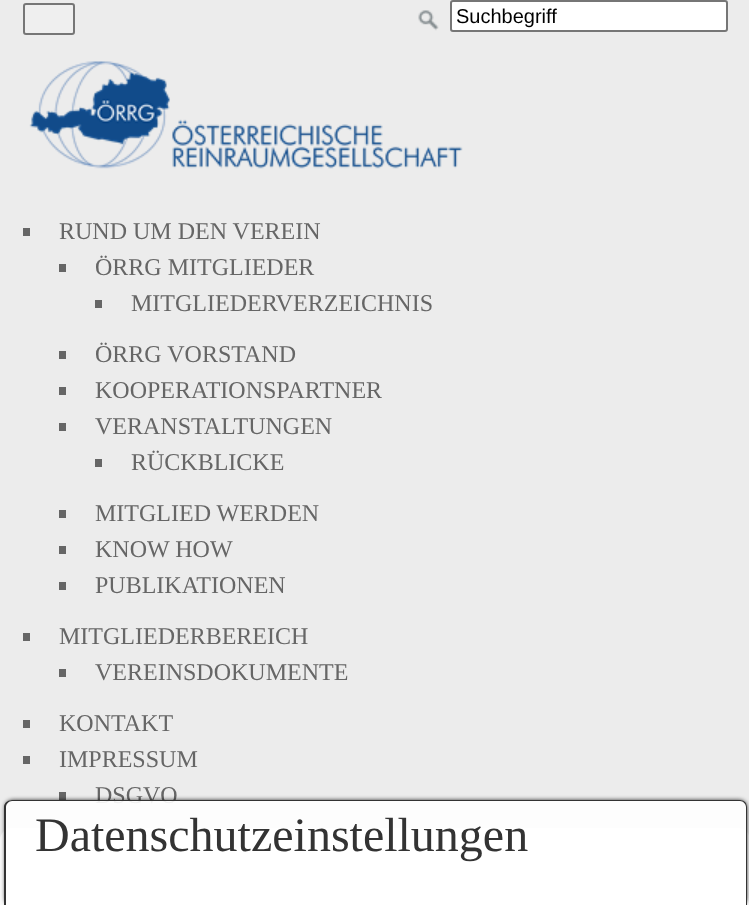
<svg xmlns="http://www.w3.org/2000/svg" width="749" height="905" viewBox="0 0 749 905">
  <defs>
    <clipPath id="clip1"><path d="M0 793H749V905H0ZM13 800H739C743.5 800 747 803.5 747 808V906H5V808C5 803.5 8.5 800 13 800Z" clip-rule="evenodd"/></clipPath>
  </defs>
  <rect width="100%" height="100%" fill="rgb(236,236,236)"/>
  <rect x="24" y="4" width="50" height="30" rx="2" fill="rgb(239,239,239)" stroke="rgb(118,118,118)" stroke-width="2"/>
  <image x="418" y="10" width="21" height="21" href="pic1.png"/>
  <rect x="451" y="1" width="276" height="30" rx="2" fill="rgb(255,255,255)" stroke="rgb(118,118,118)" stroke-width="2"/>
  <text x="456" y="23" font-family="Liberation Sans" font-size="20" fill="rgb(0,0,0)">Suchbegriff</text>
  <image x="29" y="61" width="434" height="108" href="pic2.png"/>
  <rect x="23" y="228" width="7" height="8" fill="rgb(102,102,102)"/>
  <text x="59" y="239" font-family="Liberation Serif" font-size="24" fill="rgb(102,102,102)">RUND UM DEN VEREIN</text>
  <rect x="59" y="264" width="7" height="8" fill="rgb(102,102,102)"/>
  <text x="95" y="275" font-family="Liberation Serif" font-size="24" fill="rgb(102,102,102)">ÖRRG MITGLIEDER</text>
  <rect x="95" y="300" width="7" height="8" fill="rgb(102,102,102)"/>
  <text x="131" y="311" font-family="Liberation Serif" font-size="24" fill="rgb(102,102,102)">MITGLIEDERVERZEICHNIS</text>
  <rect x="59" y="351" width="7" height="8" fill="rgb(102,102,102)"/>
  <text x="95" y="362" font-family="Liberation Serif" font-size="24" fill="rgb(102,102,102)">ÖRRG VORSTAND</text>
  <rect x="59" y="387" width="7" height="8" fill="rgb(102,102,102)"/>
  <text x="95" y="398" font-family="Liberation Serif" font-size="24" fill="rgb(102,102,102)">KOOPERATIONSPARTNER</text>
  <rect x="59" y="423" width="7" height="8" fill="rgb(102,102,102)"/>
  <text x="95" y="434" font-family="Liberation Serif" font-size="24" fill="rgb(102,102,102)">VERANSTALTUNGEN</text>
  <rect x="95" y="459" width="7" height="8" fill="rgb(102,102,102)"/>
  <text x="131" y="470" font-family="Liberation Serif" font-size="24" fill="rgb(102,102,102)">RÜCKBLICKE</text>
  <rect x="59" y="510" width="7" height="8" fill="rgb(102,102,102)"/>
  <text x="95" y="521" font-family="Liberation Serif" font-size="24" fill="rgb(102,102,102)">MITGLIED WERDEN</text>
  <rect x="59" y="546" width="7" height="8" fill="rgb(102,102,102)"/>
  <text x="95" y="557" font-family="Liberation Serif" font-size="24" fill="rgb(102,102,102)">KNOW HOW</text>
  <rect x="59" y="582" width="7" height="8" fill="rgb(102,102,102)"/>
  <text x="95" y="593" font-family="Liberation Serif" font-size="24" fill="rgb(102,102,102)">PUBLIKATIONEN</text>
  <rect x="23" y="633" width="7" height="8" fill="rgb(102,102,102)"/>
  <text x="59" y="644" font-family="Liberation Serif" font-size="24" fill="rgb(102,102,102)">MITGLIEDERBEREICH</text>
  <rect x="59" y="669" width="7" height="8" fill="rgb(102,102,102)"/>
  <text x="95" y="680" font-family="Liberation Serif" font-size="24" fill="rgb(102,102,102)">VEREINSDOKUMENTE</text>
  <rect x="23" y="720" width="7" height="8" fill="rgb(102,102,102)"/>
  <text x="59" y="731" font-family="Liberation Serif" font-size="24" fill="rgb(102,102,102)">KONTAKT</text>
  <rect x="23" y="756" width="7" height="8" fill="rgb(102,102,102)"/>
  <text x="59" y="767" font-family="Liberation Serif" font-size="24" fill="rgb(102,102,102)">IMPRESSUM</text>
  <rect x="59" y="792" width="7" height="8" fill="rgb(102,102,102)"/>
  <text x="95" y="803" font-family="Liberation Serif" font-size="24" fill="rgb(102,102,102)">DSGVO</text>
  <path d="M12 828H738C744.5 828 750 833.5 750 840V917H0V840C0 833.5 5.5 828 12 828Z" fill="rgb(250,250,250)"/>
  <g clip-path="url(#clip1)">
    <rect x="5" y="800" width="742" height="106" rx="8" fill="rgba(0,0,0,0.8)" filter="blur(2px)"/>
  </g>
  <path d="M13 800H739C743.5 800 747 803.5 747 808V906H5V808C5 803.5 8.5 800 13 800Z" fill="rgba(255,255,255,0.9)"/>
  <path d="M12 800H740C744 800 747 803 747 807V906H4V807C4 803 8 800 12 800ZM12 801H740C743 801 746 804 746 807V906H6V807C6 804 9 801 12 801Z" fill="rgb(51,51,51)" fill-rule="evenodd"/>
  <text x="35" y="851" font-family="Liberation Serif" font-size="48" fill="rgb(51,51,51)">Datenschutzeinstellungen</text>
</svg>
